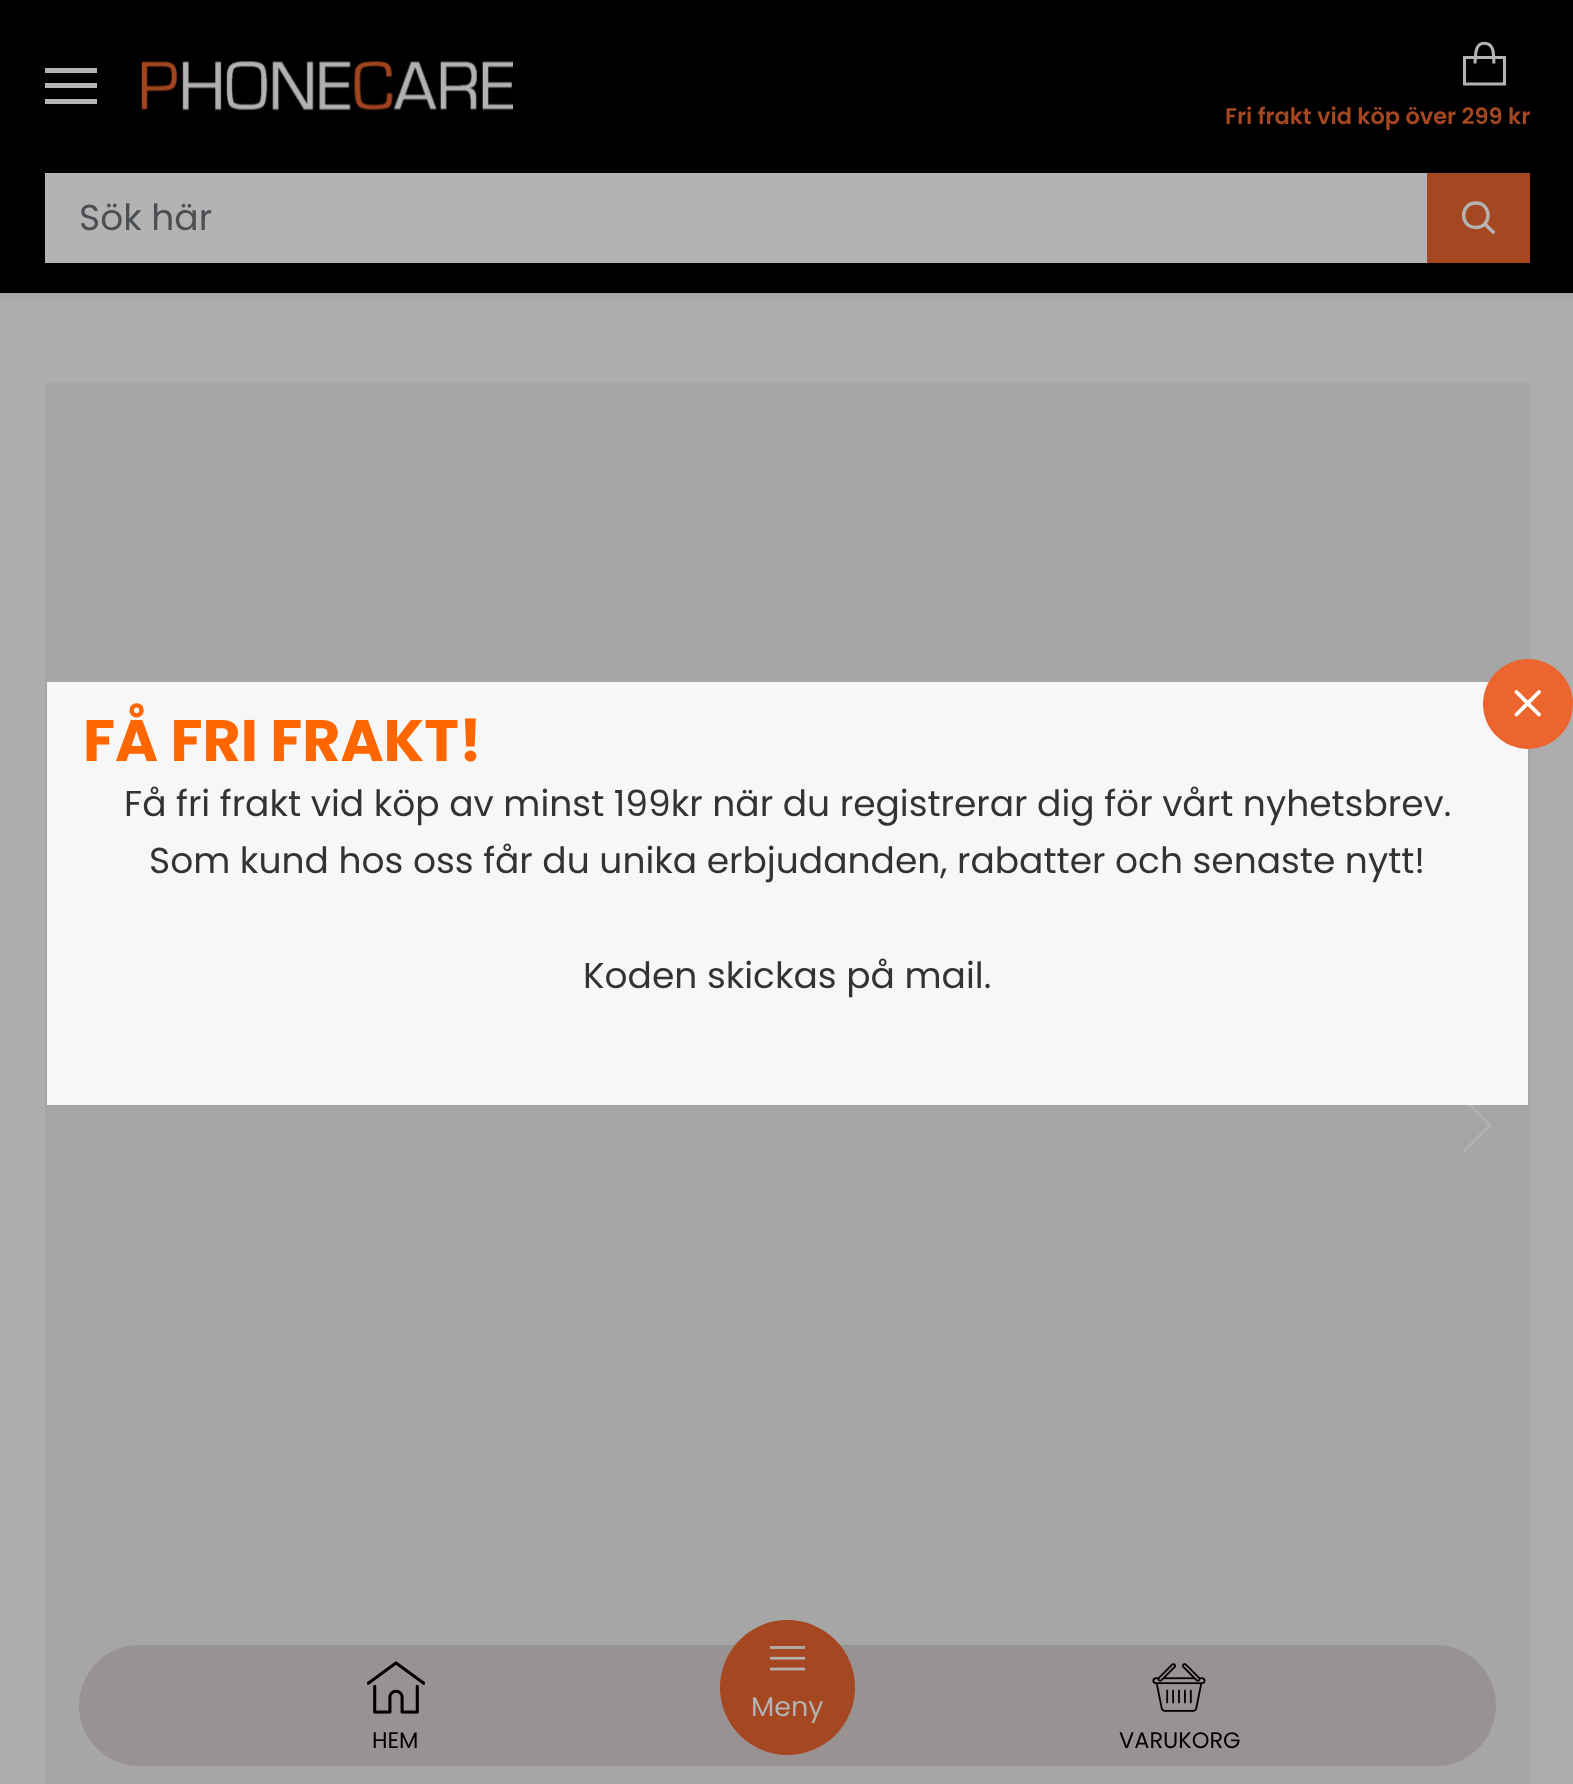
<svg xmlns="http://www.w3.org/2000/svg" width="1573" height="1784" viewBox="0 0 1573 1784">
  <rect width="100%" height="100%" fill="rgb(173,173,173)"/>
  <rect x="-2" y="-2" width="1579" height="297" fill="rgba(0,0,0,0.08)" filter="blur(3.5px)"/>
  <rect x="0" y="0" width="1573" height="293" fill="rgb(0,0,0)"/>
  <rect x="45" y="68" width="52" height="5" fill="rgb(179,179,179)"/>
  <rect x="45" y="83" width="52" height="5" fill="rgb(179,179,179)"/>
  <rect x="45" y="99" width="52" height="5" fill="rgb(179,179,179)"/>
  <image x="141" y="61" width="372" height="50" href="pic1.png"/>
  <path d="M1494 63.5C1493.5 59 1494 53.5 1492.5 49C1491.5 46.5 1489.5 44 1486.5 43.5C1474.5 41 1475.5 56 1475 63.5" fill="none" stroke="rgb(179,179,179)" stroke-width="3.1" stroke-linejoin="bevel"/>
  <path d="M1504.5 84V57.5H1464.5V84Z" fill="none" stroke="rgb(179,179,179)" stroke-width="3.1"/>
  <text x="1225" y="124" font-family="Poppins" font-size="22.5" font-weight="600" fill="rgb(165,71,32)">Fri frakt vid köp över 299 kr</text>
  <rect x="45" y="173" width="1382" height="90" fill="rgb(179,179,179)"/>
  <text x="79" y="230" font-family="Poppins" font-size="36" fill="rgb(75,79,83)">Sök här</text>
  <rect x="1427" y="173" width="103" height="90" fill="rgb(165,71,32)"/>
  <path d="M1493 232L1485 224" fill="none" stroke="rgb(179,179,179)" stroke-width="3.4" stroke-linecap="square"/>
  <path d="M1476 227.5C1492 227.5 1492 203 1476 203C1459.5 203 1459.5 227.5 1476 227.5Z" fill="none" stroke="rgb(179,179,179)" stroke-width="3.4"/>
  <rect x="45" y="383" width="1485" height="1401" fill="rgb(166,166,166)"/>
  <path d="M1464 1097L1462 1099L1488 1125L1462 1151L1464 1153L1492 1125Z" fill="rgb(176,176,176)"/>
  <rect x="47" y="682" width="1481" height="423" fill="rgb(247,247,247)"/>
  <text x="83" y="761" font-family="Poppins" font-size="58.5" font-weight="bold" fill="rgb(255,102,0)">FÅ FRI FRAKT!</text>
  <g font-family="Poppins" font-size="36" fill="rgb(51,51,51)">
    <text x="124" y="816">Få fri frakt vid köp av minst 199kr när du registrerar dig för vårt nyhetsbrev.</text>
    <text x="149" y="873">Som kund hos oss får du unika erbjudanden, rabatter och senaste nytt!</text>
    <text x="583" y="988">Koden skickas på mail.</text>
  </g>
  <circle cx="1528" cy="704" r="45" fill="rgb(236,101,46)"/>
  <path d="M1539 692L1516.5 714.5M1516.5 692L1539 714.5" fill="none" stroke="rgb(255,255,255)" stroke-width="3.8" stroke-linecap="round" stroke-linejoin="round"/>
  <rect x="79" y="1645" width="1417" height="121" rx="60.5" fill="rgb(153,146,146)"/>
  <circle cx="787.5" cy="1687.5" r="67.5" fill="rgb(165,71,32)"/>
  <image x="770" y="1646" width="36" height="25" href="pic2.png"/>
  <text x="751" y="1716" font-family="Poppins" font-size="27" fill="rgb(179,179,179)">Meny</text>
  <image x="367" y="1661" width="58" height="53" href="pic3.png"/>
  <text x="372" y="1748" font-family="Poppins" font-size="22.5" fill="rgb(0,0,0)">HEM</text>
  <image x="1152" y="1663" width="54" height="49" href="pic4.png"/>
  <text x="1119" y="1748" font-family="Poppins" font-size="22.5" fill="rgb(0,0,0)">VARUKORG</text>
</svg>
